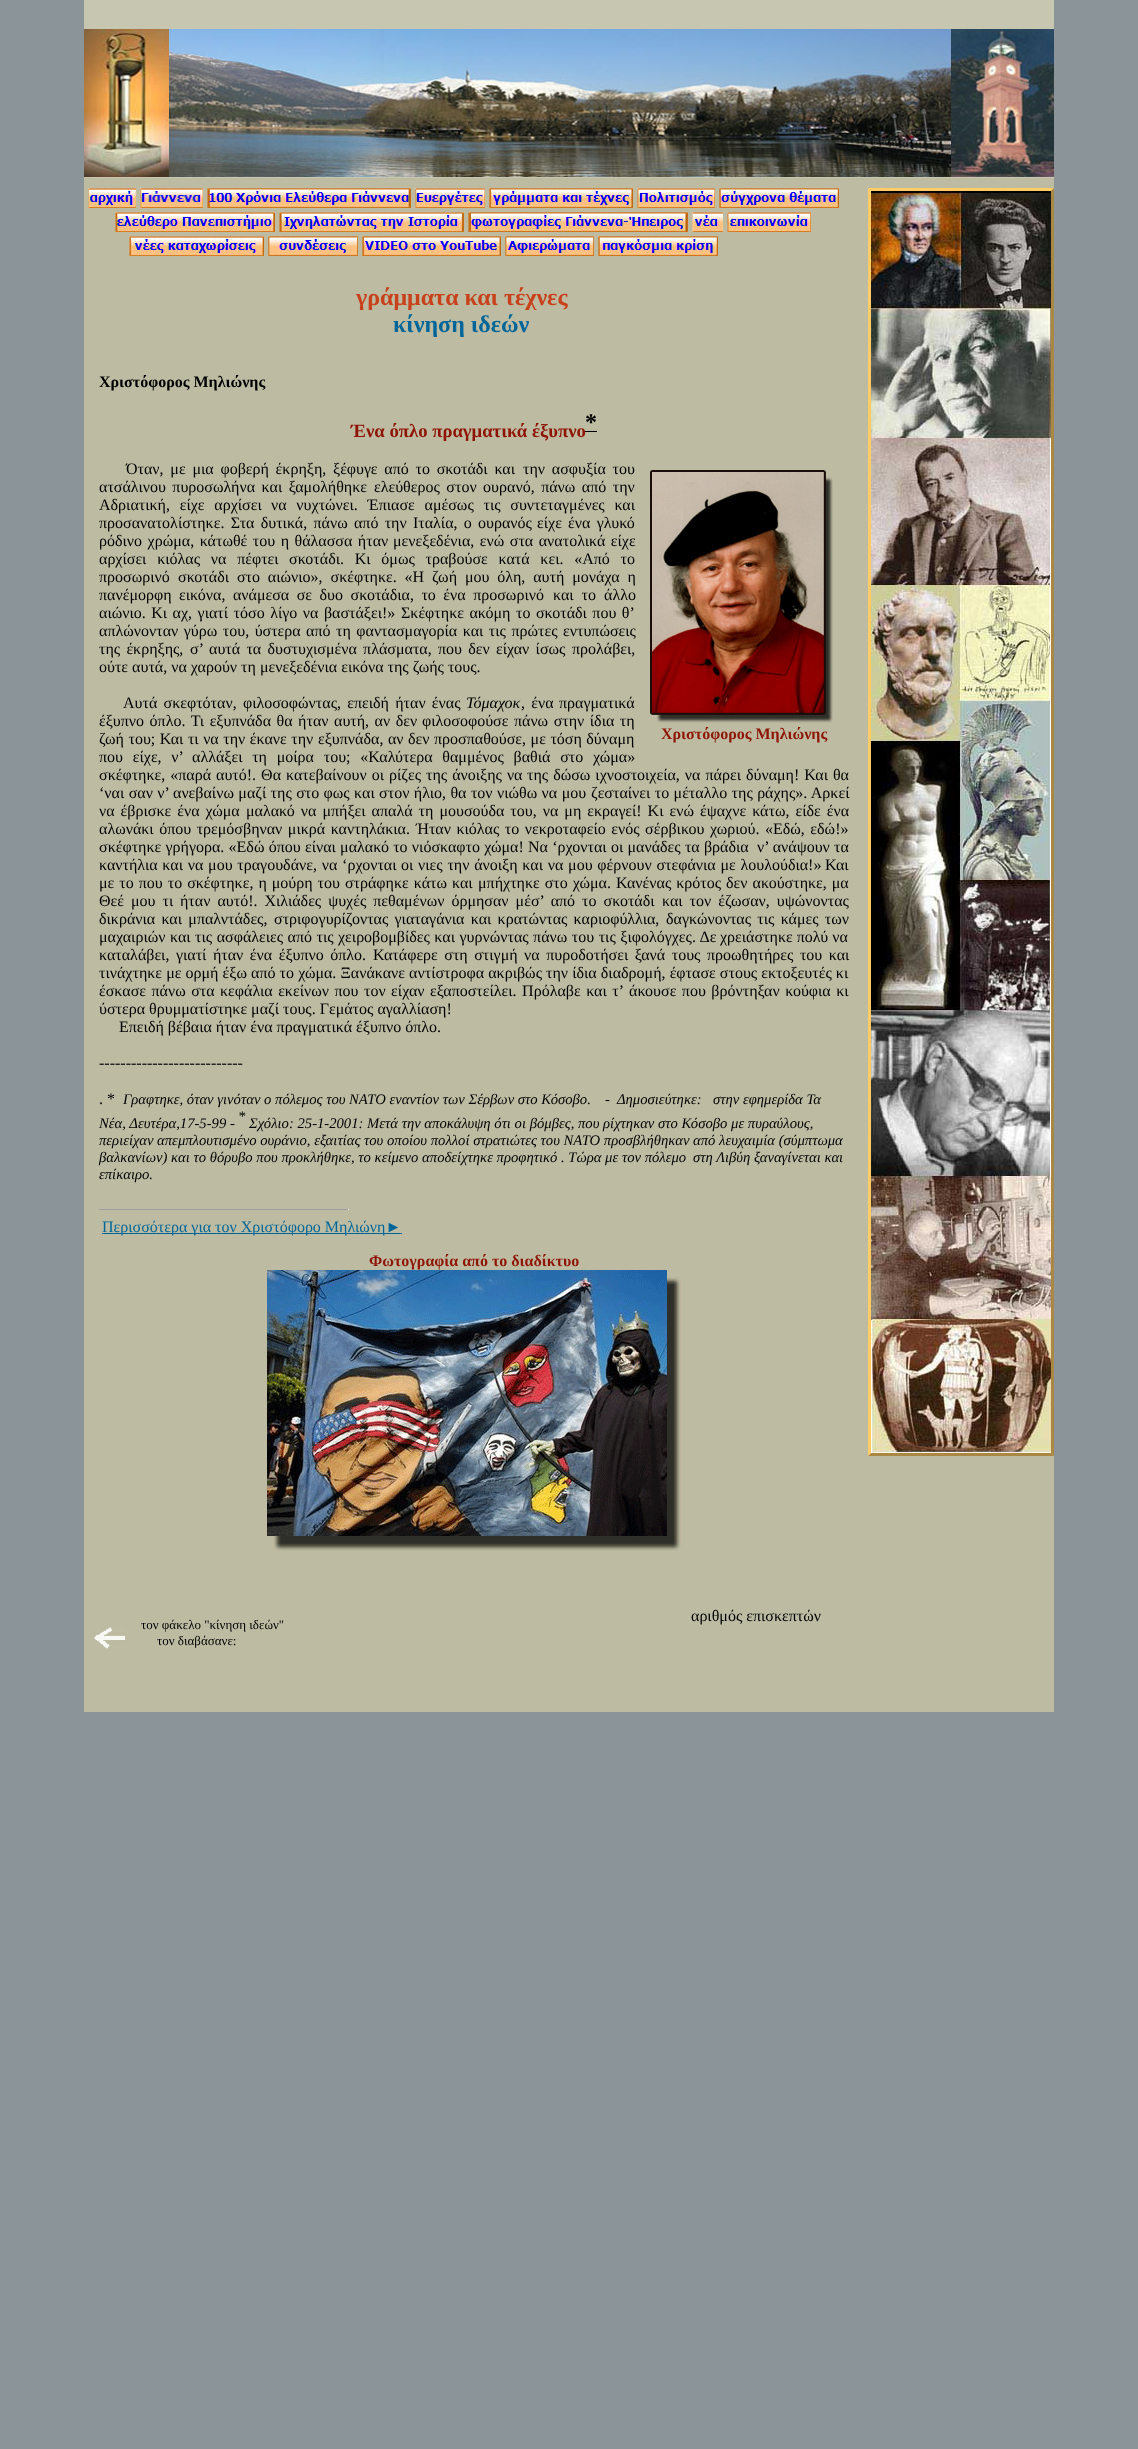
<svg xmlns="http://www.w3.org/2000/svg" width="1138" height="2449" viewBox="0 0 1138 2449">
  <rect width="100%" height="100%" fill="rgb(138,148,153)"/>
  <rect x="84" y="0" width="970" height="178" fill="rgb(199,198,177)"/>
  <image x="84" y="29" width="970" height="148" href="pic1.png"/>
  <rect x="84" y="178" width="970" height="1534" fill="rgb(189,188,163)"/>
  <image x="88" y="188" width="48" height="20" href="pic2.png"/>
  <image x="140" y="188" width="63" height="20" href="pic3.png"/>
  <image x="207" y="188" width="204" height="20" href="pic4.png"/>
  <image x="415" y="188" width="70" height="20" href="pic5.png"/>
  <image x="489" y="188" width="144" height="20" href="pic6.png"/>
  <image x="637" y="188" width="78" height="20" href="pic7.png"/>
  <image x="719" y="188" width="120" height="20" href="pic8.png"/>
  <image x="115" y="212" width="160" height="20" href="pic9.png"/>
  <image x="279" y="212" width="185" height="20" href="pic10.png"/>
  <image x="468" y="212" width="220" height="20" href="pic11.png"/>
  <image x="692" y="212" width="31" height="20" href="pic12.png"/>
  <image x="727" y="212" width="84" height="20" href="pic13.png"/>
  <image x="129" y="236" width="135" height="20" href="pic14.png"/>
  <image x="268" y="236" width="90" height="20" href="pic15.png"/>
  <image x="362" y="236" width="139" height="20" href="pic16.png"/>
  <image x="505" y="236" width="89" height="20" href="pic17.png"/>
  <image x="598" y="236" width="120" height="20" href="pic18.png"/>
  <text x="356" y="305" font-family="Liberation Serif" font-size="24" font-weight="bold" fill="rgb(200,65,26)">γράμματα και τέχνες</text>
  <text x="393" y="332" font-family="Liberation Serif" font-size="24" font-weight="bold" fill="rgb(0,102,153)">κίνηση ιδεών</text>
  <path d="M868 188H1054L1051 191H871Z" fill="rgb(255,204,102)"/>
  <path d="M1054 188V1456L1051 1453V191Z" fill="rgb(170,136,68)"/>
  <path d="M1054 1456H868L871 1453H1051Z" fill="rgb(170,136,68)"/>
  <path d="M868 1456V188L871 191V1453Z" fill="rgb(255,204,102)"/>
  <image x="871" y="191" width="180" height="1262" href="pic19.png"/>
  <text x="99" y="387" font-family="Liberation Serif" font-size="16" font-weight="bold" fill="rgb(0,0,0)">Χριστόφορος Μηλιώνης</text>
  <text x="585" y="430" font-family="Liberation Serif" font-size="24" font-weight="bold" fill="rgb(0,0,0)">*</text>
  <text x="351" y="437" font-family="Liberation Serif" font-size="18.7" font-weight="bold" fill="rgb(143,20,5)">Ένα όπλο πραγματικά έξυπνο</text>
  <rect x="585" y="431" width="12" height="1" fill="rgb(0,0,0)"/>
  <g font-family="Liberation Serif" font-size="16" fill="rgb(0,0,0)">
    <text x="126" y="474" word-spacing="2.75">Όταν, με μια φοβερή έκρηξη, ξέφυγε από το σκοτάδι και</text>
    <text x="523" y="474" word-spacing="2.75">την ασφυξία του</text>
    <text x="99" y="492" word-spacing="2.5">ατσάλινου πυροσωλήνα και ξαμολήθηκε</text>
    <text x="374" y="492" word-spacing="2.5">ελεύθερος στον ουρανό, πάνω από την</text>
    <text x="99" y="510" word-spacing="5.75">Αδριατική, είχε αρχίσει</text>
    <text x="271" y="510" word-spacing="5.75">να νυχτώνει. Έπιασε αμέσως τις συντεταγμένες και</text>
    <text x="99" y="528" word-spacing="2.25">προσανατολίστηκε. Στα δυτικά, πάνω από την Ιταλία, ο ουρανός</text>
    <text x="537" y="528" word-spacing="2.25">είχε ένα γλυκό</text>
    <text x="99" y="546" word-spacing="1.5">ρόδινο χρώμα, κάτωθέ του η θάλασσα ήταν</text>
    <text x="393" y="546" word-spacing="1.5">μενεξεδένια, ενώ στα ανατολικά είχε</text>
    <text x="99" y="564" word-spacing="6.75">αρχίσει κιόλας να πέφτει</text>
    <text x="289" y="564" word-spacing="6.75">σκοτάδι. Κι όμως τραβούσε κατά κει. «Από το</text>
    <text x="99" y="582">προσωρινό</text>
    <text x="178" y="582" word-spacing="3.9">σκοτάδι στο αιώνιο», σκέφτηκε. «Η ζωή μου όλη, αυτή μονάχα η</text>
    <text x="99" y="600" word-spacing="3.5">πανέμορφη εικόνα, ανάμεσα σε δυο σκοτάδια, το ένα προσωρινό</text>
    <text x="553" y="600" word-spacing="4">και το άλλο</text>
    <text x="99" y="618" word-spacing="1.5">αιώνιο. Κι αχ, γιατί τόσο λίγο να βαστάξει!»</text>
    <text x="401" y="618" word-spacing="1.5">Σκέφτηκε ακόμη το σκοτάδι που θ’</text>
    <text x="99" y="636" word-spacing="1.5">απλώνονταν γύρω του, ύστερα</text>
    <text x="306" y="636" word-spacing="1.5">από τη φαντασμαγορία και τις πρώτες εντυπώσεις</text>
    <text x="99" y="654" word-spacing="2.25">της έκρηξης,</text>
    <text x="190" y="654" word-spacing="2.25">σ’ αυτά τα δυστυχισμένα πλάσματα, που δεν είχαν ίσως</text>
    <text x="572" y="654">προλάβει,</text>
    <text x="99" y="672">ούτε αυτά, να χαρούν τη μενεξεδένια εικόνα της ζωής τους.</text>
    <text x="123" y="708" word-spacing="2.25">Αυτά σκεφτόταν, φιλοσοφώντας, επειδή ήταν ένας</text>
  </g>
  <text x="466" y="708" font-family="Liberation Serif" font-size="16" font-style="italic" fill="rgb(0,0,0)">Τόμαχοκ</text>
  <g font-family="Liberation Serif" font-size="16" fill="rgb(0,0,0)">
    <text x="521" y="708" word-spacing="2.25">, ένα</text>
    <text x="559" y="708">πραγματικά</text>
    <text x="99" y="726" word-spacing="1.5">έξυπνο όπλο. Τι εξυπνάδα θα ήταν αυτή, αν δεν</text>
    <text x="422" y="726" word-spacing="1.5">φιλοσοφούσε πάνω στην ίδια τη</text>
    <text x="99" y="744" word-spacing="0.5">ζωή του; Και τι να την έκανε την</text>
    <text x="318" y="744" word-spacing="0.5">εξυπνάδα, αν δεν προσπαθούσε, με τόση δύναμη</text>
    <text x="99" y="762" word-spacing="5.75">που είχε, ν’</text>
    <text x="192" y="762" word-spacing="5.75">αλλάξει τη μοίρα του; «Καλύτερα θαμμένος βαθιά στο χώμα»</text>
    <text x="99" y="780" word-spacing="1">σκέφτηκε, «παρά αυτό!. Θα κατεβαίνουν οι ρίζες της άνοιξης να</text>
    <text x="527" y="780" word-spacing="1">της δώσω ιχνοστοιχεία, να πάρει δύναμη! Και θα</text>
    <text x="99" y="798" word-spacing="0.4">‘ναι σαν ν’</text>
    <text x="173" y="798" word-spacing="0.4">ανεβαίνω μαζί της στο φως και στον ήλιο, θα τον νιώθω να μου</text>
    <text x="591" y="798" word-spacing="0.4">ζεσταίνει το μέταλλο της ράχης». Αρκεί</text>
    <text x="99" y="816" word-spacing="2">να έβρισκε ένα χώμα</text>
    <text x="246" y="816" word-spacing="2">μαλακό να μπήξει απαλά τη μουσούδα του, να μη εκραγεί! Κι ενώ</text>
    <text x="700" y="816" word-spacing="2">έψαχνε κάτω, είδε ένα</text>
    <text x="99" y="834" word-spacing="1.5">αλωνάκι όπου τρεμόσβηναν μικρά καντηλάκια.</text>
    <text x="416" y="834" word-spacing="1.5">Ήταν κιόλας το νεκροταφείο ενός σέρβικου χωριού. «Εδώ, εδώ!»</text>
    <text x="99" y="852" word-spacing="0.25">σκέφτηκε γρήγορα. «Εδώ όπου είναι μαλακό το νιόσκαφτο χώμα! Να ‘ρχονται οι μανάδες τα βράδια</text>
    <text x="757" y="852" word-spacing="0.25">ν’ ανάψουν τα</text>
    <text x="99" y="870" word-spacing="0.75">καντήλια και να μου τραγουδάνε, να ‘ρχονται</text>
    <text x="401" y="870" word-spacing="0.75">οι νιες την άνοιξη και να μου φέρνουν στεφάνια με λουλούδια!»</text>
    <text x="825" y="870">Και</text>
    <text x="99" y="888" word-spacing="1">με το που το σκέφτηκε, η μούρη του στράφηκε κάτω και</text>
    <text x="478" y="888" word-spacing="1">μπήχτηκε στο χώμα. Κανένας κρότος δεν ακούστηκε, μα</text>
    <text x="99" y="906" word-spacing="3">Θεέ μου τι</text>
    <text x="180" y="906" word-spacing="3">ήταν αυτό!. Χιλιάδες ψυχές πεθαμένων όρμησαν μέσ’ από το σκοτάδι</text>
    <text x="662" y="906" word-spacing="3">και τον έζωσαν, υψώνοντας</text>
    <text x="99" y="924" word-spacing="2.25">δικράνια και μπαλντάδες,</text>
    <text x="274" y="924" word-spacing="2.25">στριφογυρίζοντας γιαταγάνια και κρατώντας καριοφύλλια,</text>
    <text x="666" y="924" word-spacing="2.25">δαγκώνοντας τις κάμες των</text>
    <text x="99" y="942" word-spacing="0.5">μαχαιριών και τις ασφάλειες από τις</text>
    <text x="338" y="942" word-spacing="0.5">χειροβομβίδες και γυρνώντας πάνω του τις ξιφολόγχες. Δε</text>
    <text x="720" y="942">χρειάστηκε πολύ να</text>
    <text x="99" y="960" word-spacing="2.5">καταλάβει, γιατί ήταν ένα έξυπνο όπλο.</text>
    <text x="373" y="960" word-spacing="2.5">Κατάφερε στη στιγμή να πυροδοτήσει ξανά τους προωθητήρες του και</text>
    <text>
      <tspan x="99" y="978" word-spacing="0.1">τινάχτηκε με ορμή έξω από το χώμα. Ξανάκανε αντίστροφα ακριβώς την ίδια διαδρομή, έφτασε στους εκτοξευτές κι</tspan>
      <tspan x="99" y="996" word-spacing="1.5">έσκασε πάνω στα</tspan>
    </text>
    <text x="220" y="996" word-spacing="1.5">κεφάλια εκείνων που τον είχαν εξαποστείλει. Πρόλαβε και τ’</text>
    <text x="629" y="996" word-spacing="1.5">άκουσε που βρόντηξαν κούφια κι</text>
    <text x="99" y="1014">ύστερα θρυμματίστηκε μαζί τους. Γεμάτος αγαλλίαση!</text>
  </g>
  <image x="650" y="470" width="183" height="253" href="pic20.png"/>
  <text x="661" y="739" font-family="Liberation Serif" font-size="16" font-weight="bold" fill="rgb(143,20,5)">Χριστόφορος Μηλιώνης</text>
  <g font-family="Liberation Serif" font-size="16" fill="rgb(0,0,0)">
    <text x="119" y="1032">Επειδή βέβαια ήταν ένα πραγματικά έξυπνο όπλο.</text>
    <text x="99" y="1068">---------------------------</text>
    <text x="99" y="1104">. *</text>
  </g>
  <g font-family="Liberation Serif" font-size="14.67" font-style="italic" fill="rgb(0,0,0)">
    <text x="123" y="1104">Γραφτηκε, όταν γινόταν ο πόλεμος του ΝΑΤΟ εναντίον των Σέρβων στο Κόσοβο.</text>
    <text x="605" y="1104">-</text>
    <text x="617" y="1104">Δημοσιεύτηκε:</text>
    <text x="713" y="1104">στην εφημερίδα Τα</text>
    <text x="238" y="1121">*</text>
    <text x="99" y="1128">Νέα, Δευτέρα,17-5-99 -</text>
    <text x="249" y="1128">Σχόλιο: 25-1-2001: Μετά την αποκάλυψη ότι οι βόμβες, που ρίχτηκαν στο Κόσοβο με πυραύλους,</text>
    <text>
      <tspan x="99" y="1145">περιείχαν απεμπλουτισμένο ουράνιο, εξαιτίας του οποίου πολλοί στρατιώτες του ΝΑΤΟ προσβλήθηκαν από λευχαιμία (σύμπτωμα</tspan>
      <tspan x="99" y="1162">βαλκανίων) και το θόρυβο που προκλήθηκε, το κείμενο αποδείχτηκε προφητικό . Τώρα με τον πόλεμο</tspan>
    </text>
    <text x="693" y="1162">στη Λιβύη ξαναγίνεται και</text>
    <text x="99" y="1179">επίκαιρο.</text>
  </g>
  <rect x="99" y="1209" width="250" height="1" fill="rgb(159,159,159)"/>
  <rect x="348" y="1209" width="1" height="1" fill="rgb(238,238,238)"/>
  <rect x="102" y="1233" width="300" height="1" fill="rgb(0,102,153)"/>
  <text x="102" y="1232" font-family="Liberation Serif" font-size="16" fill="rgb(0,102,153)">Περισσότερα για τον Χριστόφορο Μηλιώνη►</text>
  <text x="369" y="1266" font-family="Liberation Serif" font-size="16" font-weight="bold" fill="rgb(143,20,5)">Φωτογραφία από το διαδίκτυο</text>
  <image x="267" y="1270" width="414" height="281" href="pic21.png"/>
  <text x="691" y="1621" font-family="Liberation Serif" font-size="16" fill="rgb(0,0,0)">αριθμός επισκεπτών</text>
  <image x="94" y="1627" width="31" height="22" href="pic22.png"/>
  <g font-family="Liberation Serif" font-size="13" fill="rgb(0,0,0)">
    <text x="141" y="1629">τον φάκελο "κίνηση ιδεών"</text>
    <text x="157" y="1645">τον διαβάσανε:</text>
  </g>
</svg>
